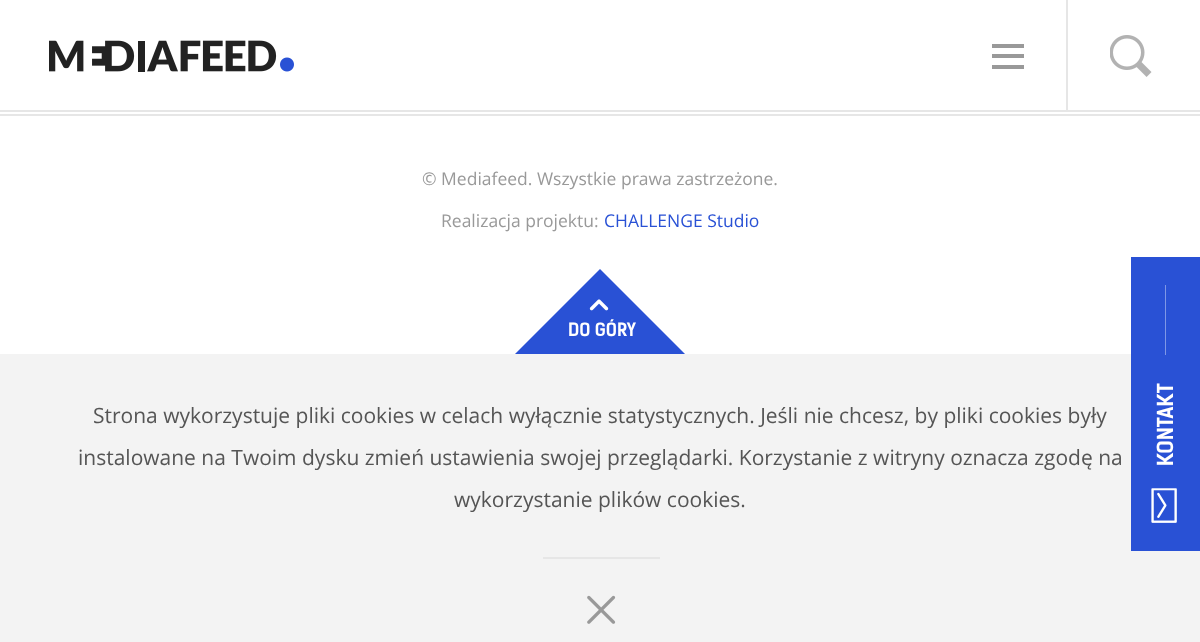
<svg xmlns="http://www.w3.org/2000/svg" width="1200" height="642" viewBox="0 0 1200 642">
  <defs>
    <clipPath id="clip1"><rect x="0" y="116" width="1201" height="238"/></clipPath>
  </defs>
  <rect width="100%" height="100%" fill="rgb(255,255,255)"/>
  <rect x="0" y="110" width="1200" height="2" fill="rgb(230,230,230)"/>
  <image x="49" y="40" width="245" height="32" href="pic1.png"/>
  <rect x="1066" y="0" width="2" height="110" fill="rgb(230,230,230)"/>
  <rect x="992" y="44" width="32" height="4" fill="rgb(153,153,153)"/>
  <rect x="992" y="54" width="32" height="4" fill="rgb(153,153,153)"/>
  <rect x="992" y="65" width="32" height="4" fill="rgb(153,153,153)"/>
  <image x="1110" y="35" width="42" height="42" href="pic2.png"/>
  <rect x="0" y="114" width="1200" height="2" fill="rgb(230,230,230)"/>
  <g font-family="Open Sans" font-size="17.5" fill="rgb(153,153,153)">
    <text x="422" y="185">© Mediafeed. Wszystkie prawa zastrzeżone.</text>
    <text x="441" y="227">Realizacja projektu:</text>
  </g>
  <text x="604" y="227" font-family="Open Sans" font-size="17.5" fill="rgb(41,81,213)">CHALLENGE Studio</text>
  <g clip-path="url(#clip1)">
    <path d="M600 269L719 388L600 507L481 388Z" fill="rgb(41,81,213)"/>
  </g>
  <image x="589" y="299" width="20" height="12" href="pic3.png"/>
  <text x="568" y="336" font-family="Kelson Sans" font-size="17.5" font-weight="bold" fill="rgb(255,255,255)">DO GÓRY</text>
  <rect x="0" y="354" width="1200" height="288" fill="rgb(243,243,243)"/>
  <g font-family="Open Sans" font-size="21" fill="rgb(85,85,85)">
    <text x="93" y="423">Strona wykorzystuje pliki cookies w celach wyłącznie statystycznych. Jeśli nie chcesz, by pliki cookies były</text>
    <text x="78" y="465">instalowane na Twoim dysku zmień ustawienia swojej przeglądarki. Korzystanie z witryny oznacza zgodę na</text>
    <text x="454" y="507">wykorzystanie plików cookies.</text>
  </g>
  <rect x="543" y="557" width="117" height="2" fill="rgb(230,230,230)"/>
  <image x="587" y="595" width="29" height="29" href="pic4.png"/>
  <rect x="1131" y="257" width="69" height="294" fill="rgb(41,81,213)"/>
  <rect x="1165" y="285" width="1" height="70" fill="rgb(127,151,230)"/>
  <text x="1173" y="466" transform="rotate(-90 1173 466)" font-family="Kelson Sans" font-size="21" font-weight="bold" fill="rgb(255,255,255)">KONTAKT</text>
  <image x="1151" y="488" width="26" height="35" href="pic5.png"/>
</svg>
